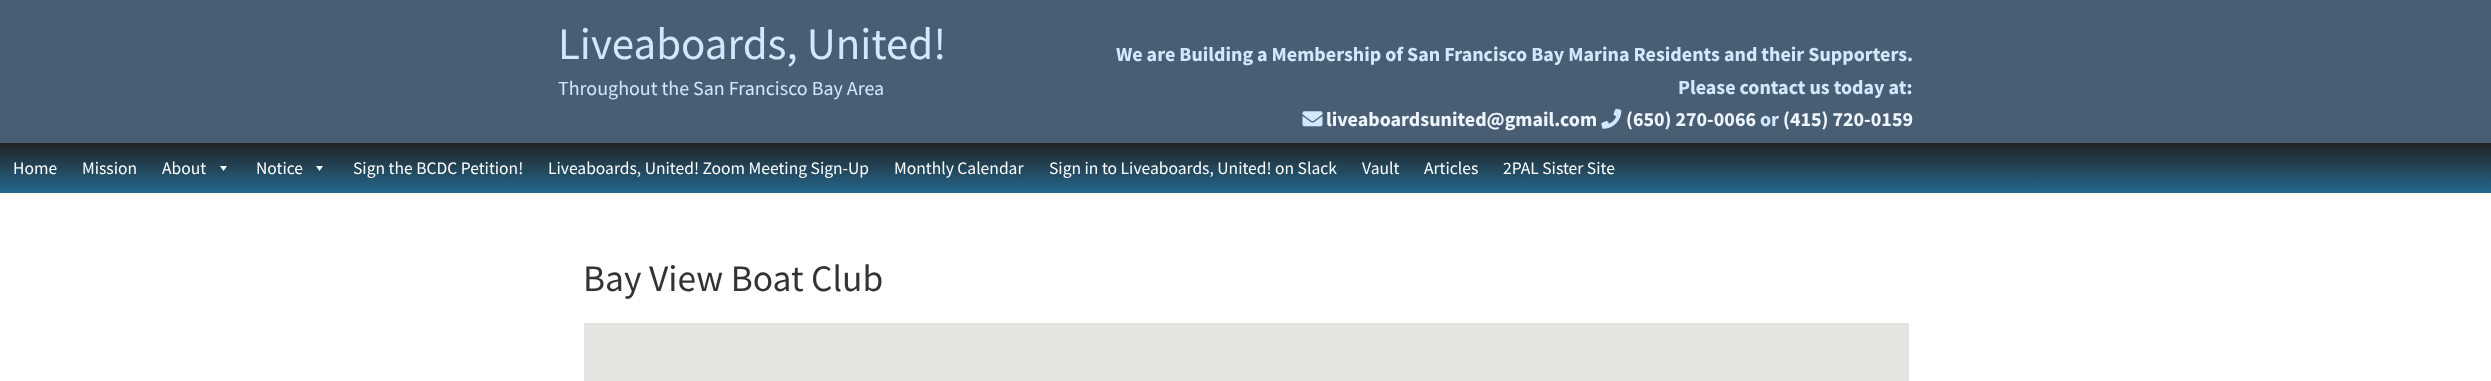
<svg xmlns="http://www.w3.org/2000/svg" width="2491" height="381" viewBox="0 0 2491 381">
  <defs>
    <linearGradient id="g1" gradientUnits="userSpaceOnUse" x1="1246" y1="142" x2="1246" y2="193"><stop offset="0" stop-color="rgb(34,34,34)"/><stop offset="1" stop-color="rgb(36,103,141)"/></linearGradient>
  </defs>
  <rect width="100%" height="100%" fill="rgb(255,255,255)"/>
  <rect x="0" y="0" width="2491" height="143" fill="rgb(73,94,115)"/>
  <text x="558" y="59" font-family="Source Sans Pro" font-size="45" fill="rgb(209,232,255)">Liveaboards, United!</text>
  <text x="558" y="95" font-family="Source Sans Pro" font-size="20" fill="rgb(209,232,255)">Throughout the San Francisco Bay Area</text>
  <g font-family="Source Sans Pro" font-size="20" font-weight="bold" fill="rgb(209,232,255)">
    <text x="1116" y="61">We are Building a Membership of San Francisco Bay Marina Residents and their Supporters.</text>
    <text x="1678" y="94">Please contact us today at:</text>
  </g>
  <image x="1302" y="111" width="21" height="16" href="pic1.png"/>
  <text x="1326" y="126" font-family="Source Sans Pro" font-size="20" font-weight="bold" fill="rgb(237,245,255)">liveaboardsunited@gmail.com</text>
  <image x="1601" y="108" width="21" height="21" href="pic2.png"/>
  <text x="1626" y="126" font-family="Source Sans Pro" font-size="20" font-weight="bold" fill="rgb(237,245,255)">(650) 270-0066</text>
  <text x="1760" y="126" font-family="Source Sans Pro" font-size="20" font-weight="bold" fill="rgb(209,232,255)">or</text>
  <text x="1783" y="126" font-family="Source Sans Pro" font-size="20" font-weight="bold" fill="rgb(237,245,255)">(415) 720-0159</text>
  <rect x="0" y="143" width="2491" height="50" fill="url(#g1)"/>
  <g font-family="Source Sans Pro" font-size="17.5" fill="rgb(255,255,255)">
    <text x="13" y="174">Home</text>
    <text x="82" y="174">Mission</text>
    <text x="162" y="174">About</text>
  </g>
  <path d="M227 166L223.5 171L220 166Z" fill="rgb(255,255,255)"/>
  <text x="256" y="174" font-family="Source Sans Pro" font-size="17.5" fill="rgb(255,255,255)">Notice</text>
  <path d="M323 166L319.5 171L316 166Z" fill="rgb(255,255,255)"/>
  <g font-family="Source Sans Pro" font-size="17.5" fill="rgb(255,255,255)">
    <text x="353" y="174">Sign the BCDC Petition!</text>
    <text x="548" y="174">Liveaboards, United! Zoom Meeting Sign-Up</text>
    <text x="894" y="174">Monthly Calendar</text>
    <text x="1049" y="174">Sign in to Liveaboards, United! on Slack</text>
    <text x="1362" y="174">Vault</text>
    <text x="1424" y="174">Articles</text>
    <text x="1503" y="174">2PAL Sister Site</text>
  </g>
  <text x="583" y="291" font-family="Source Sans Pro" font-size="37.5" fill="rgb(51,51,51)">Bay View Boat Club</text>
  <rect x="584" y="323" width="1325" height="58" fill="rgb(229,227,223)"/>
</svg>
